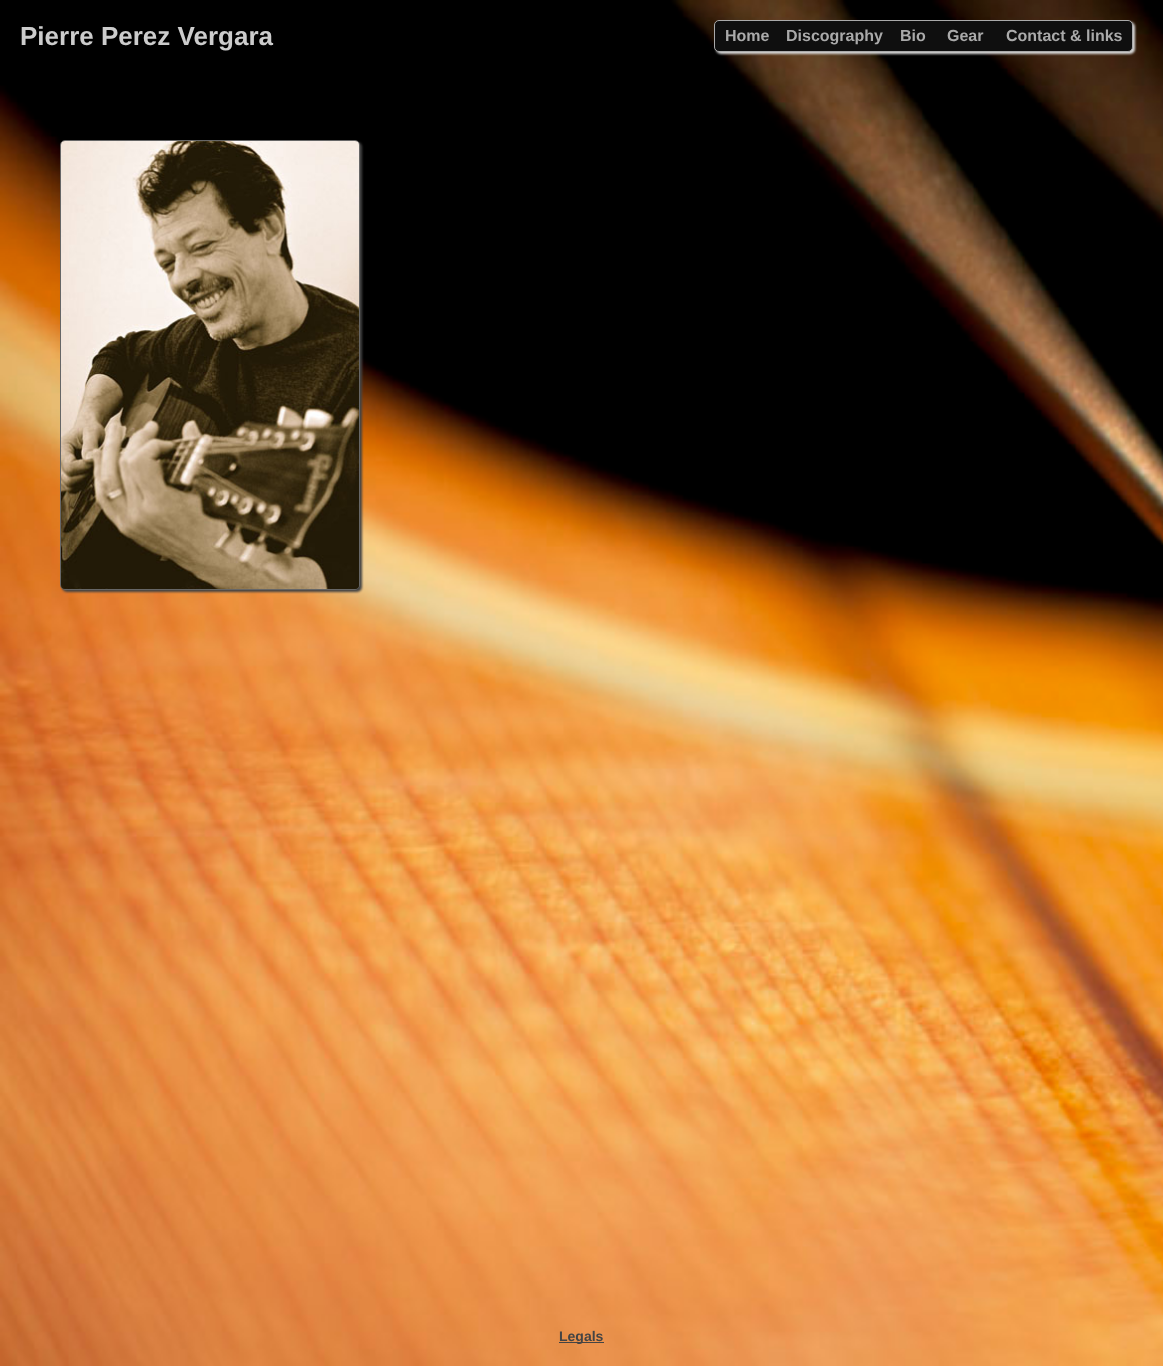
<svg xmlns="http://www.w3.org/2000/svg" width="1163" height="1366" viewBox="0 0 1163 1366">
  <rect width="100%" height="100%" fill="rgb(255,255,255)"/>
  <image x="0" y="0" width="1163" height="1366" href="pic1.png"/>
  <text x="20" y="45" font-family="Liberation Sans" font-size="26" font-weight="bold" fill="rgb(204,204,204)">Pierre Perez Vergara</text>
  <rect x="716" y="22" width="419" height="32" rx="5" fill="rgb(213,213,213)" filter="blur(1px)"/>
  <rect x="714.5" y="20.5" width="418" height="31" rx="4.5" fill="rgb(15,15,15)" stroke="rgb(170,170,170)"/>
  <g font-family="Liberation Sans" font-size="16" font-weight="bold" fill="rgb(170,170,170)">
    <text x="725" y="41">Home</text>
    <text x="786" y="41">Discography</text>
    <text x="900" y="41">Bio</text>
    <text x="947" y="41">Gear</text>
    <text x="1006" y="41">Contact &amp; links</text>
  </g>
  <rect x="62" y="142" width="300" height="450" rx="5" fill="rgb(68,68,68)" filter="blur(1px)"/>
  <rect x="60.5" y="140.5" width="299" height="449" rx="4.5" fill="none" stroke="rgb(102,102,102)"/>
  <image x="61" y="141" width="298" height="448" href="pic2.png"/>
  <rect x="559" y="1342" width="45" height="1" fill="rgb(68,68,68)"/>
  <text x="559" y="1341" font-family="Liberation Sans" font-size="14" font-weight="bold" fill="rgb(68,68,68)">Legals</text>
</svg>
